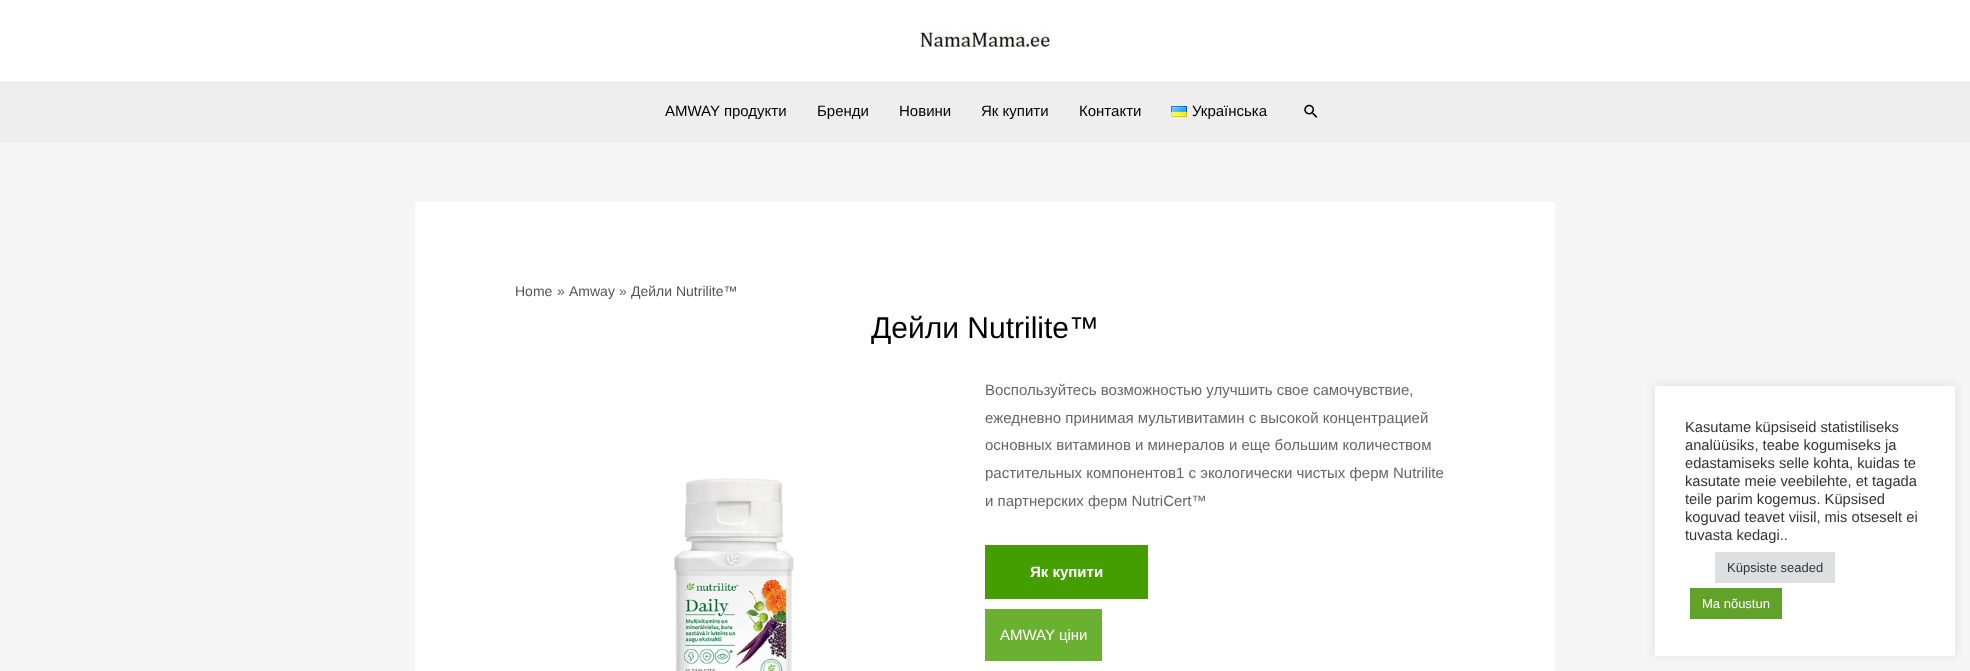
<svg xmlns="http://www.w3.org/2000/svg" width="1970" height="671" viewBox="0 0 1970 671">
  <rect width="100%" height="100%" fill="rgb(245,245,245)"/>
  <rect x="0" y="0" width="1970" height="81" fill="rgb(255,255,255)"/>
  <image x="919" y="31" width="136" height="16" href="pic1.png"/>
  <rect x="0" y="81" width="1970" height="60" fill="rgb(238,238,238)"/>
  <rect x="0" y="141" width="1970" height="1" fill="rgb(234,234,234)"/>
  <g font-family="Liberation Sans" font-size="15" fill="rgb(0,0,0)">
    <text x="665" y="116">AMWAY продукти</text>
    <text x="817" y="116">Бренди</text>
    <text x="899" y="116">Новини</text>
    <text x="981" y="116">Як купити</text>
    <text x="1079" y="116">Контакти</text>
  </g>
  <image x="1171" y="106" width="16" height="11" href="pic2.png"/>
  <text x="1192" y="116" font-family="Liberation Sans" font-size="15" fill="rgb(0,0,0)">Українська</text>
  <image x="1304" y="104" width="14" height="14" href="pic3.png"/>
  <rect x="415" y="202" width="1140" height="469" fill="rgb(255,255,255)"/>
  <text x="515" y="296" font-family="Liberation Sans" font-size="14" fill="rgb(84,84,84)">Home</text>
  <text x="557" y="296" font-family="Liberation Sans" font-size="14" fill="rgb(102,102,102)">»</text>
  <text x="569" y="296" font-family="Liberation Sans" font-size="14" fill="rgb(84,84,84)">Amway</text>
  <text x="619" y="296" font-family="Liberation Sans" font-size="14" fill="rgb(102,102,102)">»</text>
  <text x="631" y="296" font-family="Liberation Sans" font-size="14" fill="rgb(84,84,84)">Дейли Nutrilite™</text>
  <text x="871" y="338" font-family="Liberation Sans" font-size="30" fill="rgb(0,0,0)">Дейли Nutrilite™</text>
  <image x="674" y="478" width="120" height="193" href="pic4.png"/>
  <g font-family="Liberation Sans" font-size="15" fill="rgb(102,102,102)">
    <text>
      <tspan x="985" y="395">Воспользуйтесь возможностью улучшить свое самочувствие,</tspan>
      <tspan x="985" y="423">ежедневно принимая мультивитамин с высокой концентрацией</tspan>
      <tspan x="985" y="450">основных витаминов и минералов и еще большим количеством</tspan>
      <tspan x="985" y="478">растительных компонентов1 с экологически чистых ферм Nutrilite</tspan>
      <tspan x="985" y="506">и партнерских ферм NutriCert™</tspan>
    </text>
  </g>
  <rect x="985" y="545" width="163" height="54" fill="rgb(69,158,0)"/>
  <text x="1030" y="577" font-family="Liberation Sans" font-size="15" font-weight="bold" fill="rgb(255,255,255)">Як купити</text>
  <rect x="985" y="609" width="117" height="52" fill="rgb(106,177,50)"/>
  <text x="1000" y="640" font-family="Liberation Sans" font-size="15" fill="rgb(255,255,255)">AMWAY ціни</text>
  <rect x="1655" y="385" width="300" height="270" fill="rgba(172,171,171,0.3)" filter="blur(5px)"/>
  <rect x="1655" y="386" width="300" height="270" fill="rgb(255,255,255)"/>
  <g font-family="Liberation Sans" font-size="14.7" fill="rgb(51,51,51)">
    <text>
      <tspan x="1685" y="432">Kasutame küpsiseid statistiliseks</tspan>
      <tspan x="1685" y="450">analüüsiks, teabe kogumiseks ja</tspan>
      <tspan x="1685" y="468">edastamiseks selle kohta, kuidas te</tspan>
      <tspan x="1685" y="486">kasutate meie veebilehte, et tagada</tspan>
      <tspan x="1685" y="504">teile parim kogemus. Küpsised</tspan>
      <tspan x="1685" y="522">koguvad teavet viisil, mis otseselt ei</tspan>
      <tspan x="1685" y="540">tuvasta kedagi..</tspan>
    </text>
  </g>
  <rect x="1715" y="552" width="120" height="31" fill="rgb(222,223,224)"/>
  <text x="1727" y="572" font-family="Liberation Sans" font-size="13" fill="rgb(51,51,51)">Küpsiste seaded</text>
  <rect x="1690" y="588" width="92" height="31" fill="rgb(97,162,41)"/>
  <text x="1702" y="608" font-family="Liberation Sans" font-size="13" fill="rgb(255,255,255)">Ma nõustun</text>
</svg>
